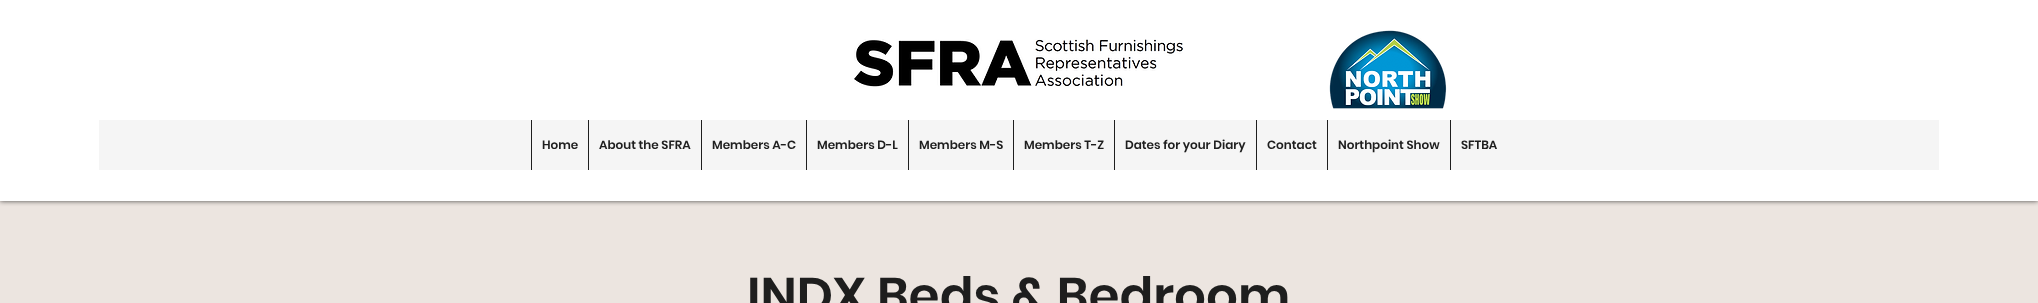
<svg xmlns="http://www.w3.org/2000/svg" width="2038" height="303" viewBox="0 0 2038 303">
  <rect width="100%" height="100%" fill="rgb(236,229,224)"/>
  <rect x="0" y="0" width="2038" height="201" fill="rgba(0,0,0,0.7)" filter="blur(2.5px)"/>
  <rect x="0" y="0" width="2038" height="201" fill="rgb(255,255,255)"/>
  <image x="854" y="39" width="329" height="48" href="pic1.png"/>
  <image x="1329" y="30" width="118" height="79" href="pic2.png"/>
  <rect x="99" y="120" width="1840" height="50" fill="rgb(245,245,245)"/>
  <rect x="531" y="120" width="1" height="50" fill="rgb(30,30,30)"/>
  <text x="542" y="149" font-family="Poppins" font-size="12" font-weight="600" fill="rgb(30,30,30)">Home</text>
  <rect x="588" y="120" width="1" height="50" fill="rgb(30,30,30)"/>
  <text x="599" y="149" font-family="Poppins" font-size="12" font-weight="600" fill="rgb(30,30,30)">About the SFRA</text>
  <rect x="701" y="120" width="1" height="50" fill="rgb(30,30,30)"/>
  <text x="712" y="149" font-family="Poppins" font-size="12" font-weight="600" fill="rgb(30,30,30)">Members A-C</text>
  <rect x="806" y="120" width="1" height="50" fill="rgb(30,30,30)"/>
  <text x="817" y="149" font-family="Poppins" font-size="12" font-weight="600" fill="rgb(30,30,30)">Members D-L</text>
  <rect x="908" y="120" width="1" height="50" fill="rgb(30,30,30)"/>
  <text x="919" y="149" font-family="Poppins" font-size="12" font-weight="600" fill="rgb(30,30,30)">Members M-S</text>
  <rect x="1013" y="120" width="1" height="50" fill="rgb(30,30,30)"/>
  <text x="1024" y="149" font-family="Poppins" font-size="12" font-weight="600" fill="rgb(30,30,30)">Members T-Z</text>
  <rect x="1114" y="120" width="1" height="50" fill="rgb(30,30,30)"/>
  <text x="1125" y="149" font-family="Poppins" font-size="12" font-weight="600" fill="rgb(30,30,30)">Dates for your Diary</text>
  <rect x="1256" y="120" width="1" height="50" fill="rgb(30,30,30)"/>
  <text x="1267" y="149" font-family="Poppins" font-size="12" font-weight="600" fill="rgb(30,30,30)">Contact</text>
  <rect x="1327" y="120" width="1" height="50" fill="rgb(30,30,30)"/>
  <text x="1338" y="149" font-family="Poppins" font-size="12" font-weight="600" fill="rgb(30,30,30)">Northpoint Show</text>
  <rect x="1450" y="120" width="1" height="50" fill="rgb(30,30,30)"/>
  <text x="1461" y="149" font-family="Poppins" font-size="12" font-weight="600" fill="rgb(30,30,30)">SFTBA</text>
  <text x="747" y="313" font-family="Poppins" font-size="50" font-weight="600" fill="rgb(30,30,30)">INDX Beds &amp; Bedroom</text>
</svg>
